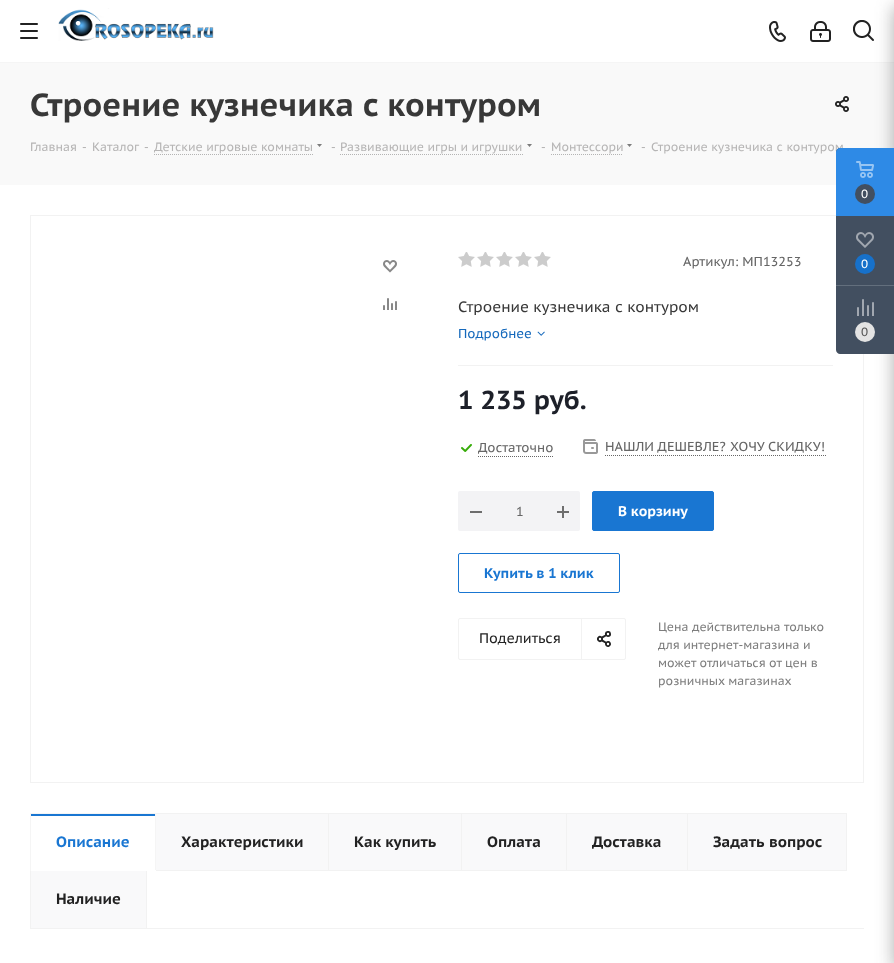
<svg xmlns="http://www.w3.org/2000/svg" width="894" height="963" viewBox="0 0 894 963">
  <rect width="100%" height="100%" fill="rgb(255,255,255)"/>
  <rect x="0" y="62" width="894" height="1" fill="rgb(245,245,245)"/>
  <image x="20" y="23" width="18" height="16" href="pic1.png"/>
  <image x="58" y="8" width="156" height="46" href="pic2.png"/>
  <image x="769" y="21" width="17" height="21" href="pic3.png"/>
  <image x="810" y="21" width="21" height="21" href="pic4.png"/>
  <image x="853" y="20" width="21" height="21" href="pic5.png"/>
  <rect x="0" y="63" width="894" height="122" fill="rgb(249,249,249)"/>
  <text x="30" y="116" font-family="PT Sans Caption" font-size="32" font-weight="bold" fill="rgb(56,56,56)">Строение кузнечика с контуром</text>
  <image x="835" y="96" width="14" height="16" href="pic6.png"/>
  <g font-family="PT Sans Caption" font-size="12" fill="rgb(182,181,181)">
    <text x="30" y="151">Главная</text>
    <text x="82" y="151">-</text>
    <text x="92" y="151">Каталог</text>
    <text x="144" y="151">-</text>
    <text x="154" y="151">Детские игровые комнаты</text>
  </g>
  <path d="M154 154.5H313" fill="none" stroke="rgb(180,180,180)" stroke-dasharray="1 1"/>
  <image x="317" y="144" width="5" height="3" href="pic7.png"/>
  <g font-family="PT Sans Caption" font-size="12" fill="rgb(182,181,181)">
    <text x="331" y="151">-</text>
    <text x="340" y="151">Развивающие игры и игрушки</text>
  </g>
  <path d="M340 154.5H523" fill="none" stroke="rgb(180,180,180)" stroke-dasharray="1 1"/>
  <image x="527" y="144" width="5" height="3" href="pic7.png"/>
  <g font-family="PT Sans Caption" font-size="12" fill="rgb(182,181,181)">
    <text x="541" y="151">-</text>
    <text x="551" y="151">Монтессори</text>
  </g>
  <path d="M551 154.5H623" fill="none" stroke="rgb(180,180,180)" stroke-dasharray="1 1"/>
  <image x="627" y="144" width="5" height="3" href="pic7.png"/>
  <g font-family="PT Sans Caption" font-size="12" fill="rgb(182,181,181)">
    <text x="641" y="151">-</text>
    <text x="651" y="151">Строение кузнечика с контуром</text>
  </g>
  <rect x="30.5" y="215.5" width="833" height="567" fill="none" stroke="rgb(242,242,242)"/>
  <image x="383" y="260" width="14" height="13" href="pic8.png"/>
  <image x="383" y="298" width="14" height="12" href="pic9.png"/>
  <rect x="458" y="365" width="375" height="1" fill="rgb(242,242,242)"/>
  <image x="458" y="252" width="17" height="15" href="pic10.png"/>
  <image x="477" y="252" width="17" height="15" href="pic10.png"/>
  <image x="496" y="252" width="17" height="15" href="pic10.png"/>
  <image x="515" y="252" width="17" height="15" href="pic10.png"/>
  <image x="534" y="252" width="17" height="15" href="pic10.png"/>
  <text x="683" y="266" font-family="PT Sans Caption" font-size="13" fill="rgb(102,102,102)">Артикул: МП13253</text>
  <text x="458" y="312" font-family="PT Sans Caption" font-size="15" fill="rgb(56,56,56)">Строение кузнечика с контуром</text>
  <text x="458" y="338" font-family="PT Sans Caption" font-size="13" fill="rgb(21,105,188)">Подробнее</text>
  <image x="537" y="331" width="8" height="5" href="pic11.png"/>
  <text x="458" y="409" font-family="PT Sans Caption" font-size="26" font-weight="bold" fill="rgb(29,32,41)">1 235 руб.</text>
  <image x="461" y="444" width="11" height="8" href="pic12.png"/>
  <text x="478" y="452" font-family="PT Sans Caption" font-size="13" fill="rgb(102,102,102)">Достаточно</text>
  <path d="M478 456.5H553" fill="none" stroke="rgb(102,102,102)" stroke-dasharray="1 1"/>
  <image x="583" y="439" width="15" height="15" href="pic13.png"/>
  <text x="605" y="451" font-family="PT Sans Caption" font-size="13" fill="rgb(102,102,102)">НАШЛИ ДЕШЕВЛЕ?</text>
  <path d="M605 455.5H826" fill="none" stroke="rgb(102,102,102)" stroke-dasharray="1 1"/>
  <text x="730" y="451" font-family="PT Sans Caption" font-size="13" fill="rgb(102,102,102)">ХОЧУ СКИДКУ!</text>
  <rect x="458" y="491" width="122" height="40" rx="2" fill="rgb(243,243,245)"/>
  <rect x="470" y="511" width="12" height="2" fill="rgb(109,109,109)"/>
  <text x="516" y="516" font-family="PT Sans Caption" font-size="13" fill="rgb(102,102,102)">1</text>
  <image x="557" y="506" width="12" height="12" href="pic14.png"/>
  <rect x="592.5" y="491.5" width="121" height="39" rx="1.5" fill="rgb(25,118,210)" stroke="rgb(25,118,210)"/>
  <text x="618" y="516" font-family="PT Sans Caption" font-size="14" font-weight="bold" fill="rgb(255,255,255)">В корзину</text>
  <rect x="458.5" y="553.5" width="161" height="39" rx="1.5" fill="none" stroke="rgb(25,118,210)"/>
  <text x="484" y="578" font-family="PT Sans Caption" font-size="14" font-weight="bold" fill="rgb(25,118,210)">Купить в 1 клик</text>
  <rect x="581" y="618" width="1" height="42" fill="rgb(242,242,242)"/>
  <image x="597" y="631" width="14" height="16" href="pic15.png"/>
  <rect x="458.5" y="618.5" width="167" height="41" rx="1.5" fill="none" stroke="rgb(242,242,242)"/>
  <text x="479" y="643" font-family="PT Sans Caption" font-size="14" fill="rgb(34,34,34)">Поделиться</text>
  <g font-family="PT Sans Caption" font-size="12" fill="rgb(125,125,125)">
    <text>
      <tspan x="658" y="631">Цена действительна только</tspan>
      <tspan x="658" y="649">для интернет-магазина и</tspan>
      <tspan x="658" y="667">может отличаться от цен в</tspan>
      <tspan x="658" y="685">розничных магазинах</tspan>
    </text>
  </g>
  <rect x="147" y="928" width="717" height="1" fill="rgb(242,242,242)"/>
  <rect x="155.5" y="813.5" width="173" height="57" fill="rgb(249,249,250)" stroke="rgb(242,242,242)"/>
  <rect x="30" y="813" width="126" height="1" fill="rgb(245,245,245)"/>
  <rect x="155" y="813" width="1" height="58" fill="rgb(245,245,245)"/>
  <rect x="30.5" y="870.5" width="116" height="58" fill="rgb(249,249,250)" stroke="rgb(242,242,242)"/>
  <rect x="30" y="870" width="126" height="1" fill="rgb(255,255,255)"/>
  <rect x="30" y="813" width="1" height="58" fill="rgb(245,245,245)"/>
  <rect x="31" y="814" width="124" height="2" fill="rgb(25,118,210)"/>
  <text x="56" y="847" font-family="PT Sans Caption" font-size="15" font-weight="bold" fill="rgb(25,118,210)">Описание</text>
  <text x="181" y="847" font-family="PT Sans Caption" font-size="15" font-weight="bold" fill="rgb(34,34,34)">Характеристики</text>
  <rect x="328.5" y="813.5" width="133" height="57" fill="rgb(249,249,250)" stroke="rgb(242,242,242)"/>
  <text x="354" y="847" font-family="PT Sans Caption" font-size="15" font-weight="bold" fill="rgb(34,34,34)">Как купить</text>
  <rect x="461.5" y="813.5" width="105" height="57" fill="rgb(249,249,250)" stroke="rgb(242,242,242)"/>
  <text x="487" y="847" font-family="PT Sans Caption" font-size="15" font-weight="bold" fill="rgb(34,34,34)">Оплата</text>
  <rect x="566.5" y="813.5" width="121" height="57" fill="rgb(249,249,250)" stroke="rgb(242,242,242)"/>
  <text x="592" y="847" font-family="PT Sans Caption" font-size="15" font-weight="bold" fill="rgb(34,34,34)">Доставка</text>
  <rect x="687.5" y="813.5" width="159" height="57" fill="rgb(249,249,250)" stroke="rgb(242,242,242)"/>
  <g font-family="PT Sans Caption" font-size="15" font-weight="bold" fill="rgb(34,34,34)">
    <text x="713" y="847" word-spacing="1">Задать вопрос</text>
    <text x="56" y="904">Наличие</text>
  </g>
  <rect x="894" y="6" width="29" height="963" rx="2" fill="rgba(44,44,44,0.4)" filter="blur(9px)"/>
  <path d="M840 148H894V354H840C838 354 836 352 836 350V152C836 150 838 148 840 148Z" fill="rgb(66,79,96)"/>
  <path d="M840 148H894V216H836V152C836 150 838 148 840 148Z" fill="rgb(46,138,230)"/>
  <image x="856" y="161" width="18" height="17" href="pic16.png"/>
  <circle cx="865" cy="194" r="10" fill="rgb(66,79,96)"/>
  <text x="861" y="198" font-family="PT Sans Caption" font-size="12" fill="rgb(255,255,255)">0</text>
  <image x="856" y="232" width="18" height="16" href="pic17.png"/>
  <circle cx="865" cy="264" r="10" fill="rgb(23,113,202)"/>
  <text x="861" y="268" font-family="PT Sans Caption" font-size="12" fill="rgb(255,255,255)">0</text>
  <rect x="836" y="285" width="58" height="1" fill="rgb(99,111,125)"/>
  <image x="857" y="299" width="17" height="17" href="pic18.png"/>
  <circle cx="865" cy="332" r="10" fill="rgb(227,227,227)"/>
  <text x="861" y="336" font-family="PT Sans Caption" font-size="12" fill="rgb(85,85,85)">0</text>
</svg>
